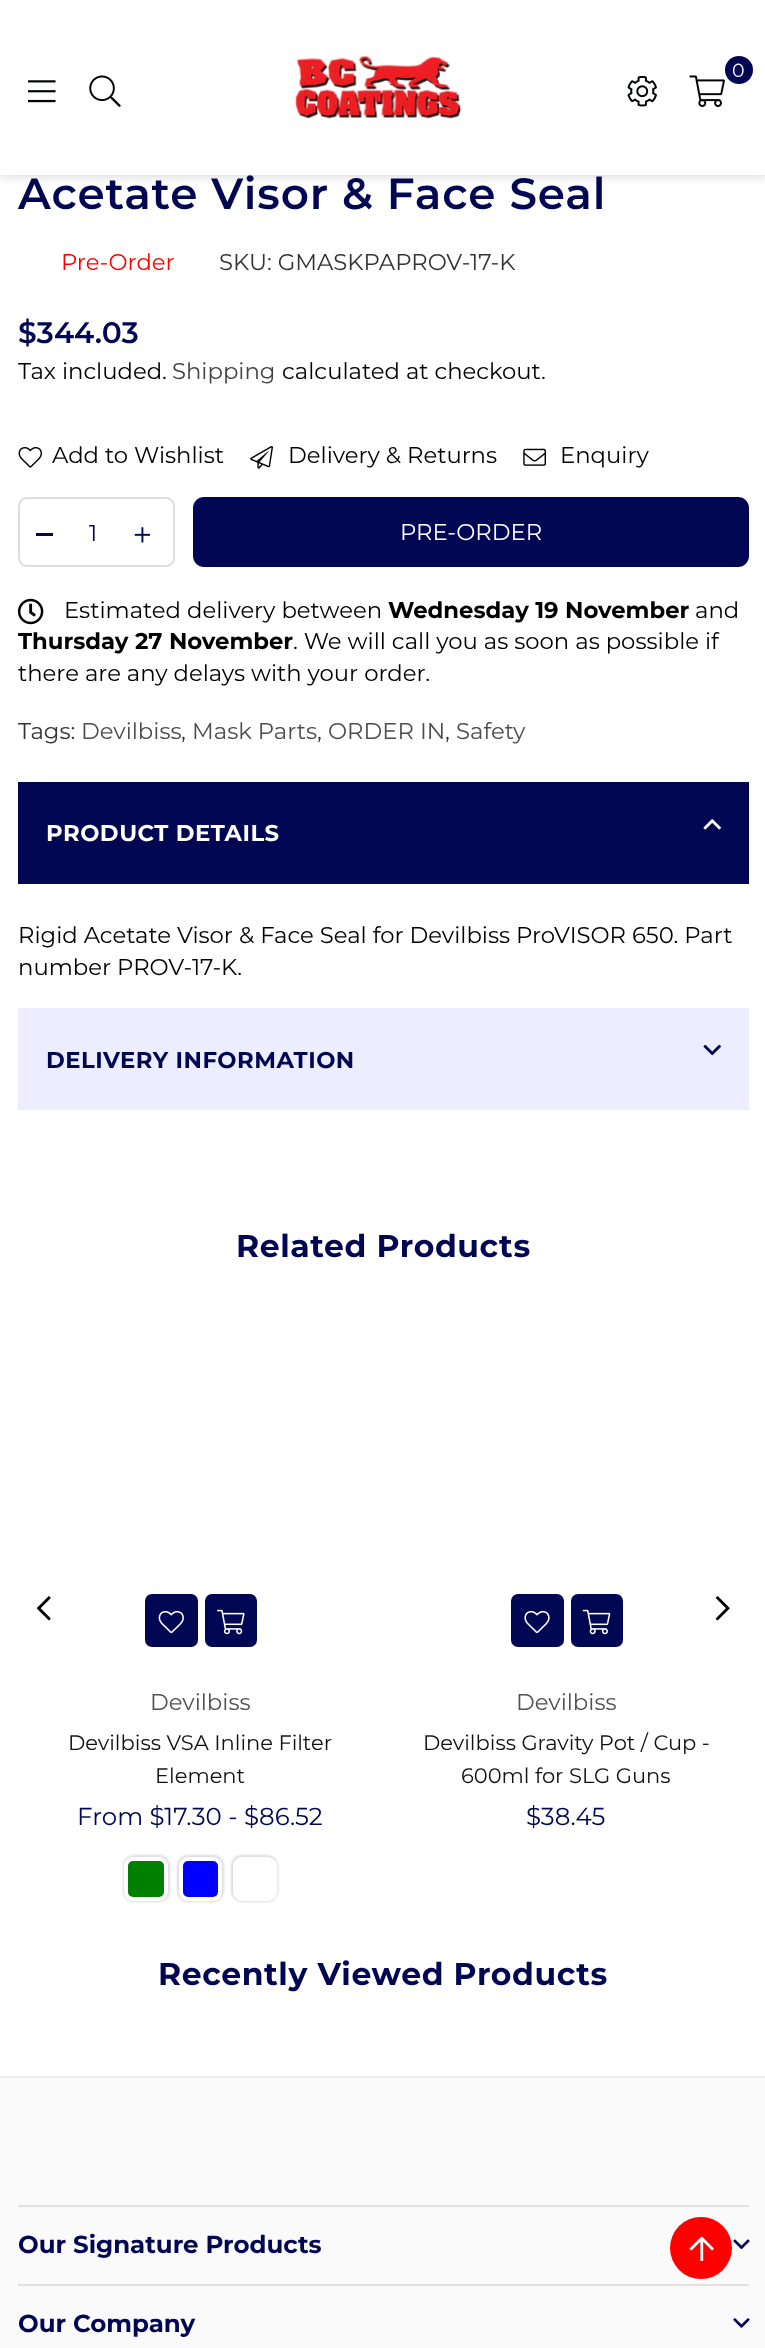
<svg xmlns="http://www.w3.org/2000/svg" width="765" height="2348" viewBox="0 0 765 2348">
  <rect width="100%" height="100%" fill="rgb(255,255,255)"/>
  <rect x="0" y="0" width="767" height="175" fill="rgba(0,0,0,0.2)" filter="blur(6px)"/>
  <rect x="0" y="0" width="765" height="175" fill="rgb(255,255,255)"/>
  <image x="295" y="55" width="167" height="64" href="pic1.png"/>
  <circle cx="739" cy="70" r="14" fill="rgb(2,7,83)"/>
  <text x="732" y="77" font-family="Montserrat" font-size="19" fill="rgb(255,255,255)">0</text>
  <image x="689" y="75" width="36" height="32" href="pic2.png"/>
  <image x="627" y="76" width="30" height="31" href="pic3.png"/>
  <image x="28" y="80" width="28" height="23" href="pic4.png"/>
  <image x="89" y="75" width="32" height="32" href="pic5.png"/>
  <text x="18" y="209" font-family="Montserrat" font-size="43.75" font-weight="600" letter-spacing="0.9" fill="rgb(2,7,83)">Acetate Visor &amp; Face Seal</text>
  <text x="61" y="270" font-family="Montserrat" font-size="22.75" fill="rgb(255,0,0)">Pre-Order</text>
  <text x="219" y="270" font-family="Montserrat" font-size="22.75" fill="rgb(51,51,51)">SKU: GMASKPAPROV-17-K</text>
  <text x="18" y="343" font-family="Montserrat" font-size="29.75" font-weight="600" fill="rgb(2,7,83)">$344.03</text>
  <text x="18" y="379" font-family="Montserrat" font-size="22.75" fill="rgb(0,0,0)">Tax included.</text>
  <text x="172" y="379" font-family="Montserrat" font-size="22.75" fill="rgb(68,68,68)">Shipping</text>
  <text x="282" y="379" font-family="Montserrat" font-size="22.75" fill="rgb(0,0,0)">calculated at checkout.</text>
  <image x="18" y="447" width="24" height="21" href="pic6.png"/>
  <text x="52" y="463" font-family="Montserrat" font-size="22.75" fill="rgb(0,0,0)">Add to Wishlist</text>
  <image x="250" y="445" width="23" height="24" href="pic7.png"/>
  <text x="288" y="463" font-family="Montserrat" font-size="22.75" fill="rgb(0,0,0)">Delivery &amp; Returns</text>
  <image x="523" y="448" width="23" height="18" href="pic8.png"/>
  <text x="560" y="463" font-family="Montserrat" font-size="22.75" fill="rgb(0,0,0)">Enquiry</text>
  <rect x="19" y="498" width="155" height="68" rx="8" fill="none" stroke="rgb(221,221,221)" stroke-width="2"/>
  <rect x="36" y="533" width="17" height="3" fill="rgb(2,7,83)"/>
  <text x="89" y="541" font-family="Montserrat" font-size="22.75" fill="rgb(2,7,83)">1</text>
  <image x="134" y="527" width="17" height="16" href="pic9.png"/>
  <rect x="194" y="498" width="554" height="68" rx="10" fill="rgb(2,7,83)" stroke="rgb(2,7,83)" stroke-width="2"/>
  <text x="400" y="540" font-family="Montserrat" font-size="22.75" fill="rgb(255,255,255)">PRE-ORDER</text>
  <image x="17" y="598" width="27" height="27" href="pic10.png"/>
  <text x="64" y="618" font-family="Montserrat" font-size="22.75" fill="rgb(0,0,0)">Estimated delivery between</text>
  <text x="388" y="618" font-family="Montserrat" font-size="22.75" font-weight="bold" fill="rgb(0,0,0)">Wednesday 19 November</text>
  <text x="695" y="618" font-family="Montserrat" font-size="22.75" fill="rgb(0,0,0)">and</text>
  <text x="18" y="649" font-family="Montserrat" font-size="22.75" font-weight="bold" fill="rgb(0,0,0)">Thursday 27 November</text>
  <g font-family="Montserrat" font-size="22.75" fill="rgb(0,0,0)">
    <text x="293" y="649">. We will call you as soon as possible if</text>
    <text x="18" y="681">there are any delays with your order.</text>
  </g>
  <text x="18" y="739" font-family="Montserrat" font-size="22.75" fill="rgb(51,51,51)">Tags:</text>
  <text x="81" y="739" font-family="Montserrat" font-size="22.75" fill="rgb(77,77,77)">Devilbiss</text>
  <text x="181" y="739" font-family="Montserrat" font-size="22.75" fill="rgb(51,51,51)">,</text>
  <text x="192" y="739" font-family="Montserrat" font-size="22.75" fill="rgb(77,77,77)">Mask Parts</text>
  <text x="317" y="739" font-family="Montserrat" font-size="22.75" fill="rgb(51,51,51)">,</text>
  <text x="328" y="739" font-family="Montserrat" font-size="22.75" fill="rgb(77,77,77)">ORDER IN</text>
  <text x="445" y="739" font-family="Montserrat" font-size="22.75" fill="rgb(51,51,51)">,</text>
  <text x="456" y="739" font-family="Montserrat" font-size="22.75" fill="rgb(77,77,77)">Safety</text>
  <rect x="18" y="782" width="731" height="102" fill="rgb(2,7,83)"/>
  <text x="46" y="841" font-family="Montserrat" font-size="22.75" font-weight="bold" letter-spacing="0.5" fill="rgb(255,255,255)">PRODUCT DETAILS</text>
  <image x="703" y="819" width="18" height="11" href="pic11.png"/>
  <g font-family="Montserrat" font-size="22.75" fill="rgb(0,0,0)">
    <text>
      <tspan x="18" y="943">Rigid Acetate Visor &amp; Face Seal for Devilbiss ProVISOR 650. Part</tspan>
      <tspan x="18" y="975">number PROV-17-K.</tspan>
    </text>
  </g>
  <rect x="18" y="1008" width="731" height="102" fill="rgb(236,237,255)"/>
  <text x="46" y="1068" font-family="Montserrat" font-size="22.75" font-weight="bold" letter-spacing="0.5" fill="rgb(2,7,83)">DELIVERY INFORMATION</text>
  <image x="703" y="1044" width="18" height="12" href="pic12.png"/>
  <text x="236" y="1257" font-family="Montserrat" font-size="31.5" font-weight="bold" letter-spacing="0.6" fill="rgb(2,7,83)">Related Products</text>
  <image x="36" y="1596" width="15" height="25" href="pic13.png"/>
  <image x="715" y="1596" width="15" height="25" href="pic14.png"/>
  <rect x="145" y="1594" width="53" height="53" rx="7" fill="rgb(2,7,83)"/>
  <image x="158" y="1610" width="26" height="24" href="pic15.png"/>
  <rect x="205" y="1594" width="52" height="53" rx="7" fill="rgb(2,7,83)"/>
  <image x="217" y="1609" width="28" height="26" href="pic16.png"/>
  <text x="150" y="1710" font-family="Montserrat" font-size="22.75" fill="rgb(82,82,83)">Devilbiss</text>
  <g font-family="Montserrat" font-size="21" fill="rgb(17,17,17)">
    <text x="68" y="1750">Devilbiss VSA Inline Filter</text>
    <text x="155" y="1783">Element</text>
  </g>
  <text x="77" y="1825" font-family="Montserrat" font-size="24.5" fill="rgb(2,7,83)">From $17.30 - $86.52</text>
  <rect x="123" y="1855" width="47" height="47" rx="11" fill="rgb(221,221,221)" filter="blur(1px)"/>
  <rect x="126" y="1859" width="40" height="40" rx="7" fill="rgb(0,128,0)" stroke="rgb(255,255,255)" stroke-width="4"/>
  <rect x="177" y="1855" width="47" height="47" rx="11" fill="rgb(221,221,221)" filter="blur(1px)"/>
  <rect x="181" y="1859" width="39" height="40" rx="7" fill="rgb(0,0,255)" stroke="rgb(255,255,255)" stroke-width="4"/>
  <rect x="231" y="1855" width="47" height="47" rx="11" fill="rgb(221,221,221)" filter="blur(1px)"/>
  <rect x="235" y="1859" width="40" height="40" rx="7" fill="rgb(255,255,255)" stroke="rgb(255,255,255)" stroke-width="4"/>
  <rect x="511" y="1594" width="53" height="53" rx="7" fill="rgb(2,7,83)"/>
  <image x="524" y="1610" width="26" height="24" href="pic17.png"/>
  <rect x="571" y="1594" width="52" height="53" rx="7" fill="rgb(2,7,83)"/>
  <image x="582" y="1609" width="29" height="26" href="pic18.png"/>
  <text x="516" y="1710" font-family="Montserrat" font-size="22.75" fill="rgb(82,82,83)">Devilbiss</text>
  <g font-family="Montserrat" font-size="21" fill="rgb(17,17,17)">
    <text x="423" y="1750">Devilbiss Gravity Pot / Cup -</text>
    <text x="461" y="1783">600ml for SLG Guns</text>
  </g>
  <text x="526" y="1825" font-family="Montserrat" font-size="24.5" fill="rgb(2,7,83)">$38.45</text>
  <text x="158" y="1985" font-family="Montserrat" font-size="31.5" font-weight="bold" letter-spacing="0.6" fill="rgb(2,7,83)">Recently Viewed Products</text>
  <rect x="0" y="2078" width="765" height="270" fill="rgb(250,250,250)"/>
  <rect x="0" y="2076" width="765" height="2" fill="rgb(238,238,238)"/>
  <rect x="18" y="2205" width="731" height="2" fill="rgb(225,225,225)"/>
  <text x="18" y="2253" font-family="Montserrat" font-size="24.5" font-weight="bold" fill="rgb(2,7,83)">Our Signature Products</text>
  <image x="733" y="2239" width="17" height="11" href="pic19.png"/>
  <rect x="18" y="2284" width="731" height="2" fill="rgb(225,225,225)"/>
  <text x="18" y="2332" font-family="Montserrat" font-size="24.5" font-weight="bold" fill="rgb(2,7,83)">Our Company</text>
  <image x="733" y="2318" width="17" height="10" href="pic20.png"/>
  <circle cx="701" cy="2248" r="31" fill="rgb(255,0,0)"/>
  <image x="689" y="2236" width="25" height="25" href="pic21.png"/>
</svg>
